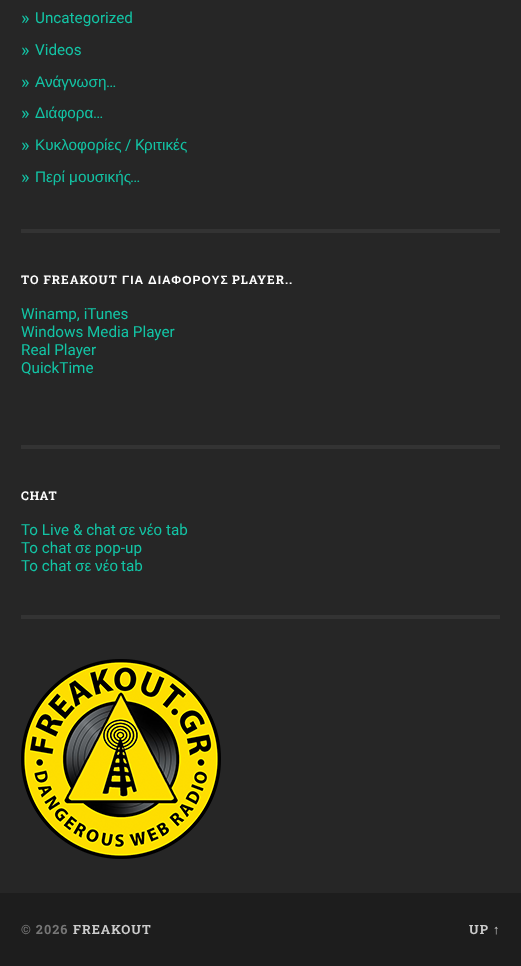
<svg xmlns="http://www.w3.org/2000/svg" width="521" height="966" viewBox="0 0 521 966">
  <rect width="100%" height="100%" fill="rgb(38,38,38)"/>
  <text x="21" y="24" font-family="Roboto" font-size="18" fill="rgb(19,196,165)">»</text>
  <text x="35" y="23" font-family="Roboto" font-size="15.25" fill="rgb(19,196,165)">Uncategorized</text>
  <text x="21" y="56" font-family="Roboto" font-size="18" fill="rgb(19,196,165)">»</text>
  <text x="35" y="55" font-family="Roboto" font-size="15.25" fill="rgb(19,196,165)">Videos</text>
  <text x="21" y="88" font-family="Roboto" font-size="18" fill="rgb(19,196,165)">»</text>
  <text x="35" y="87" font-family="Liberation Sans" font-size="15.25" fill="rgb(19,196,165)">Ανάγνωση</text>
  <text x="106" y="87" font-family="Roboto" font-size="15.25" fill="rgb(19,196,165)">…</text>
  <text x="21" y="119" font-family="Roboto" font-size="18" fill="rgb(19,196,165)">»</text>
  <text x="35" y="118" font-family="Liberation Sans" font-size="15.25" fill="rgb(19,196,165)">Διάφορα</text>
  <text x="93" y="118" font-family="Roboto" font-size="15.25" fill="rgb(19,196,165)">…</text>
  <text x="21" y="151" font-family="Roboto" font-size="18" fill="rgb(19,196,165)">»</text>
  <text x="35" y="150" font-family="Liberation Sans" font-size="15.25" fill="rgb(19,196,165)">Κυκλοφορίες</text>
  <text x="125" y="150" font-family="Roboto" font-size="15.25" fill="rgb(19,196,165)">/ K</text>
  <text x="144" y="150" font-family="Liberation Sans" font-size="15.25" fill="rgb(19,196,165)">ριτικές</text>
  <text x="21" y="183" font-family="Roboto" font-size="18" fill="rgb(19,196,165)">»</text>
  <text x="35" y="182" font-family="Liberation Sans" font-size="15.25" fill="rgb(19,196,165)">Περί μουσικής</text>
  <text x="130" y="182" font-family="Roboto" font-size="15.25" fill="rgb(19,196,165)">…</text>
  <rect x="21" y="229" width="479" height="4" fill="rgb(51,51,51)"/>
  <text x="21" y="284" font-family="Roboto Slab" font-size="12" font-weight="bold" letter-spacing="1" fill="rgb(255,255,255)">TO FREAKOUT</text>
  <g font-family="Liberation Sans" font-size="12" font-weight="bold" letter-spacing="1" fill="rgb(255,255,255)">
    <text x="122" y="284">ΓΙΑ</text>
    <text x="148" y="284">ΔΙΑΦΟΡΟΥΣ</text>
  </g>
  <text x="232" y="284" font-family="Roboto Slab" font-size="12" font-weight="bold" letter-spacing="1" fill="rgb(255,255,255)">PLAYER..</text>
  <g font-family="Roboto" font-size="15.25" fill="rgb(19,196,165)">
    <text>
      <tspan x="21" y="319">Winamp, iTunes</tspan>
      <tspan x="21" y="337">Windows Media Player</tspan>
      <tspan x="21" y="355">Real Player</tspan>
      <tspan x="21" y="373">QuickTime</tspan>
    </text>
  </g>
  <rect x="21" y="445" width="479" height="4" fill="rgb(51,51,51)"/>
  <text x="21" y="500" font-family="Roboto Slab" font-size="12" font-weight="bold" letter-spacing="1" fill="rgb(255,255,255)">CHAT</text>
  <text x="21" y="535" font-family="Roboto" font-size="15.25" fill="rgb(19,196,165)">To Live &amp; chat</text>
  <g font-family="Liberation Sans" font-size="15.25" fill="rgb(19,196,165)">
    <text x="119" y="535">σε</text>
    <text x="139" y="535">νέο</text>
  </g>
  <g font-family="Roboto" font-size="15.25" fill="rgb(19,196,165)">
    <text x="166" y="535">tab</text>
    <text x="21" y="553">To chat</text>
  </g>
  <text x="75" y="553" font-family="Liberation Sans" font-size="15.25" fill="rgb(19,196,165)">σε</text>
  <g font-family="Roboto" font-size="15.25" fill="rgb(19,196,165)">
    <text x="95" y="553">pop-up</text>
    <text x="21" y="571">To chat</text>
  </g>
  <g font-family="Liberation Sans" font-size="15.25" fill="rgb(19,196,165)">
    <text x="75" y="571">σε</text>
    <text x="95" y="571">νέο</text>
  </g>
  <text x="121" y="571" font-family="Roboto" font-size="15.25" fill="rgb(19,196,165)">tab</text>
  <rect x="21" y="615" width="479" height="4" fill="rgb(51,51,51)"/>
  <image x="21" y="659" width="200" height="200" href="pic1.png"/>
  <rect x="0" y="893" width="521" height="73" fill="rgb(29,29,29)"/>
  <text x="21" y="934" font-family="Roboto Slab" font-size="12.75" font-weight="bold" letter-spacing="1" fill="rgb(118,118,118)">© 2026</text>
  <g font-family="Roboto Slab" font-size="12.75" font-weight="bold" letter-spacing="1" fill="rgb(204,204,204)">
    <text x="73" y="934">FREAKOUT</text>
    <text x="469" y="934">UP</text>
  </g>
  <text x="493" y="934" font-family="Liberation Sans" font-size="12.75" font-weight="bold" letter-spacing="1" fill="rgb(204,204,204)">↑</text>
</svg>
